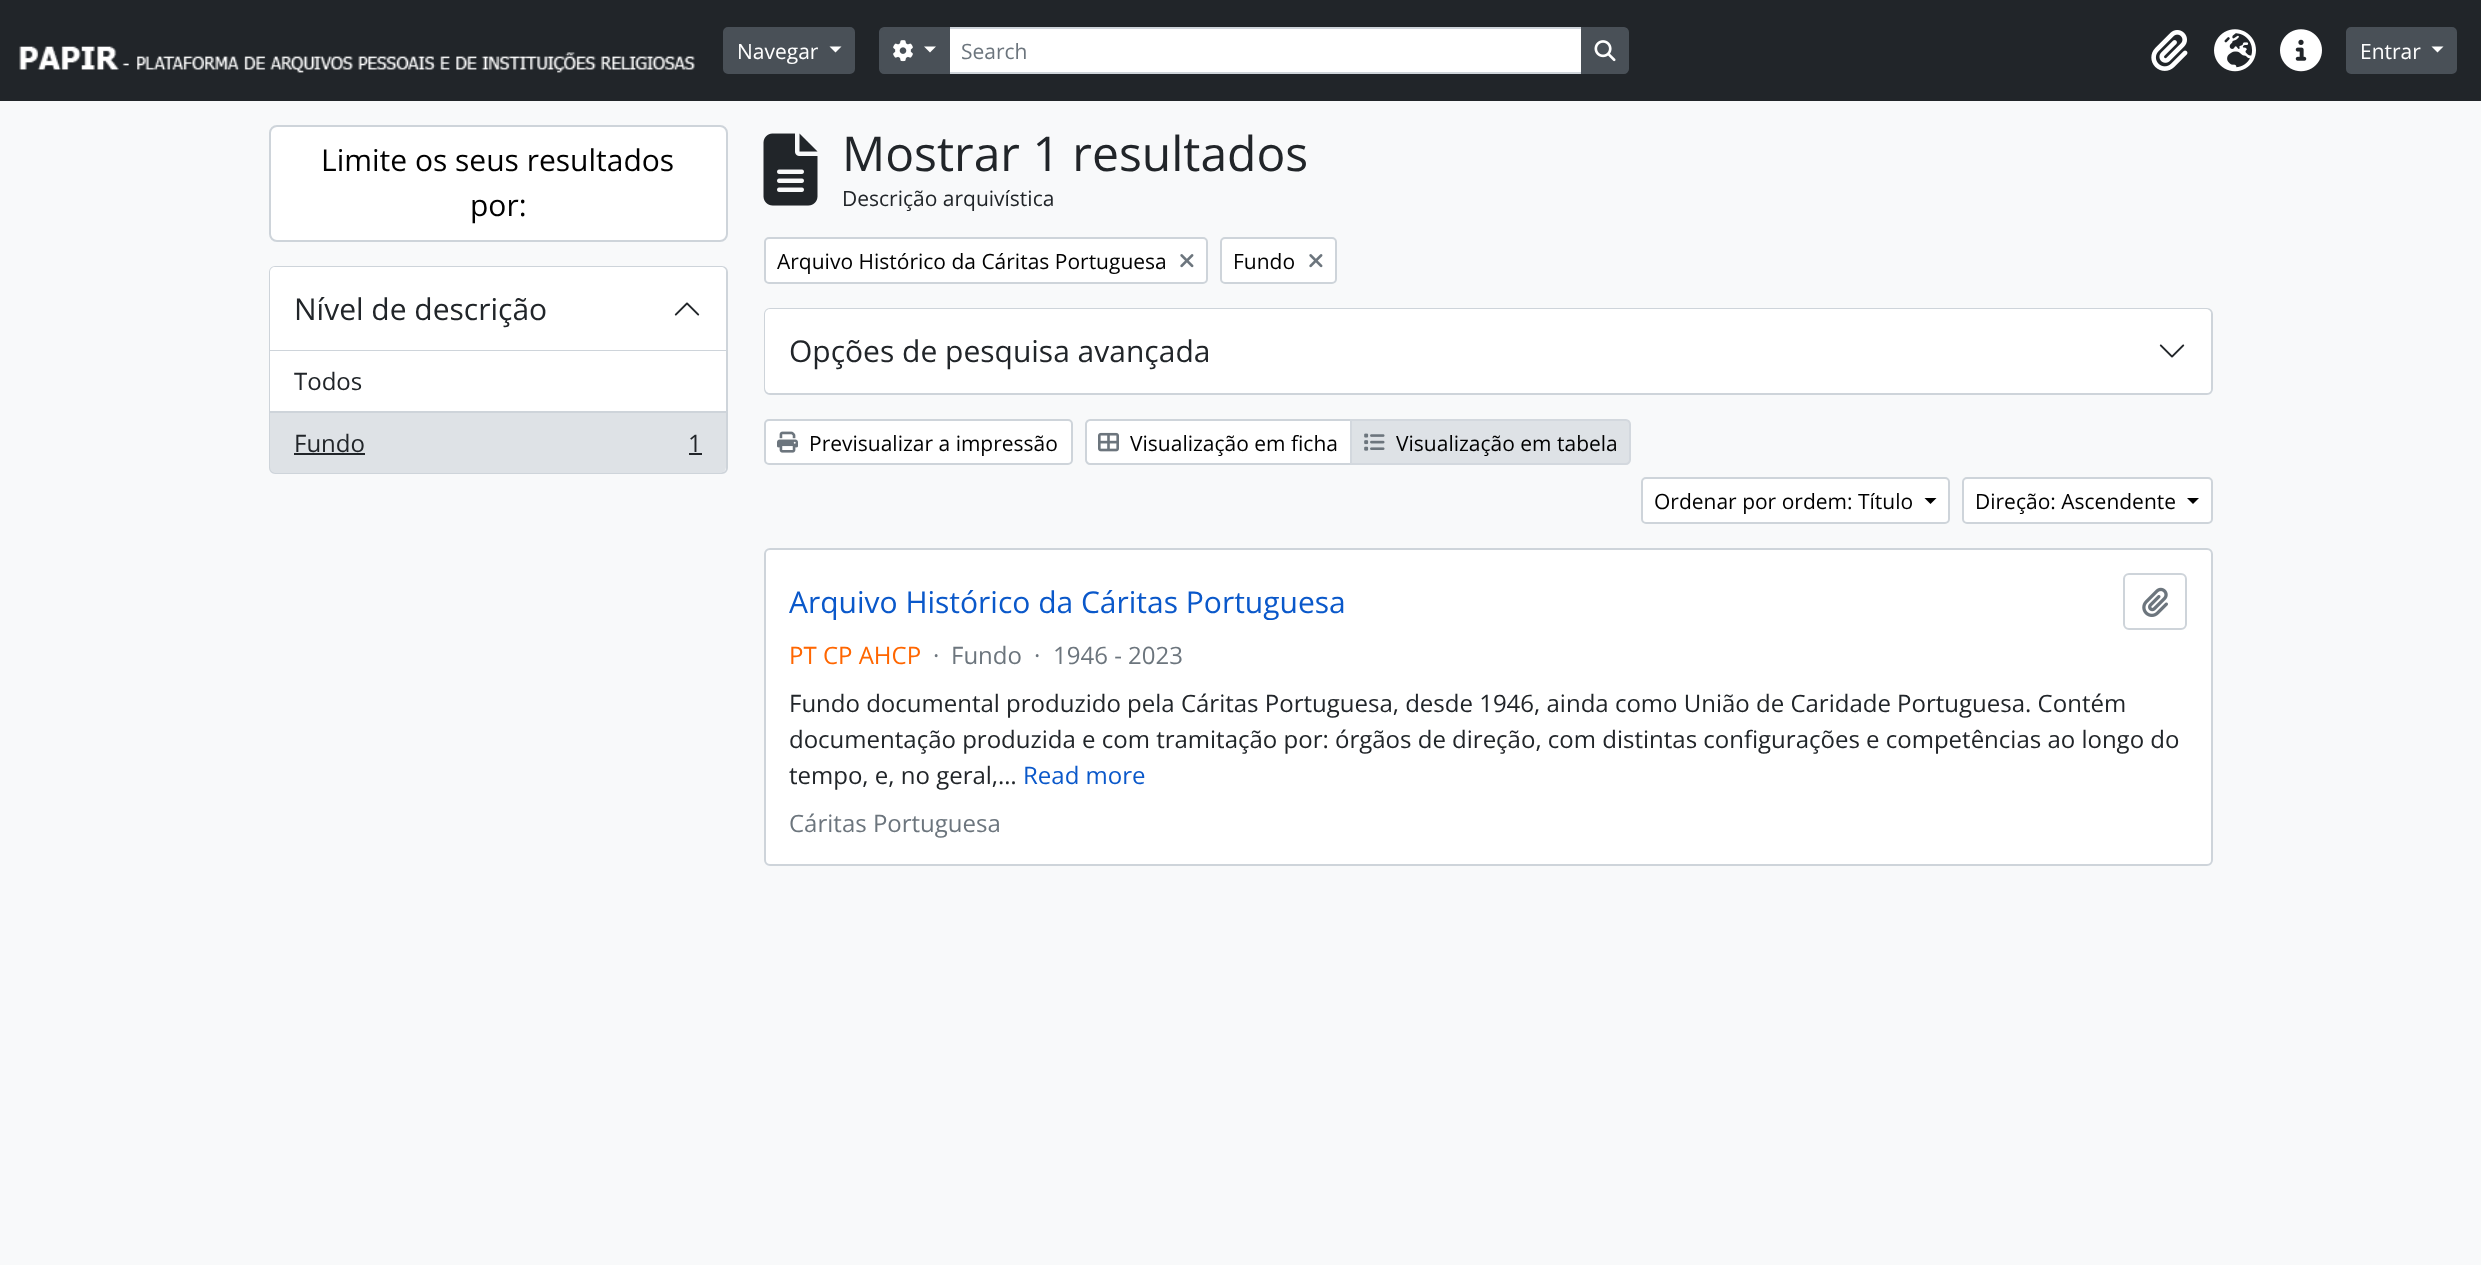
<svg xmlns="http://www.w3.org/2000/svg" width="2481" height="1265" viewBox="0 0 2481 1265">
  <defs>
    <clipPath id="clip1"><rect x="789" y="584" width="557" height="36"/></clipPath>
  </defs>
  <rect width="100%" height="100%" fill="rgb(248,249,250)"/>
  <rect x="0" y="0" width="2481" height="101" fill="rgb(33,37,41)"/>
  <image x="19" y="46" width="676" height="27" href="pic1.png"/>
  <rect x="724" y="28" width="130" height="45" rx="4" fill="rgb(73,80,87)" stroke="rgb(73,80,87)" stroke-width="2"/>
  <text x="737" y="59" font-family="Open Sans" font-size="21" fill="rgb(255,255,255)">Navegar</text>
  <path d="M829.5 46.5H841.5L835.5 52.5Z" fill="rgb(255,255,255)"/>
  <rect x="949" y="28" width="633" height="45" fill="rgb(255,255,255)" stroke="rgb(206,212,218)" stroke-width="2"/>
  <path d="M884 28H949V73H884C882 73 880 71 880 69V32C880 30 882 28 884 28Z" fill="rgb(73,80,87)" stroke="rgb(73,80,87)" stroke-width="2"/>
  <image x="893" y="40" width="20" height="22" href="pic2.png"/>
  <path d="M924 46.5H936L930 52.5Z" fill="rgb(255,255,255)"/>
  <text x="961" y="59" font-family="Open Sans" font-size="21" fill="rgb(108,117,125)">Search</text>
  <path d="M1582 28H1624C1626 28 1628 30 1628 32V69C1628 71 1626 73 1624 73H1582Z" fill="rgb(73,80,87)" stroke="rgb(73,80,87)" stroke-width="2"/>
  <image x="1594" y="40" width="22" height="22" href="pic3.png"/>
  <image x="2151" y="30" width="37" height="41" href="pic4.png"/>
  <image x="2214" y="29" width="42" height="43" href="pic5.png"/>
  <image x="2280" y="29" width="42" height="43" href="pic6.png"/>
  <rect x="2347" y="28" width="109" height="45" rx="4" fill="rgb(73,80,87)" stroke="rgb(73,80,87)" stroke-width="2"/>
  <text x="2360" y="59" font-family="Open Sans" font-size="21" fill="rgb(255,255,255)">Entrar</text>
  <path d="M2431.5 46.5H2443.5L2437.5 52.5Z" fill="rgb(255,255,255)"/>
  <rect x="270" y="126" width="457" height="115" rx="7" fill="rgb(255,255,255)" stroke="rgb(206,212,218)" stroke-width="2"/>
  <g font-family="Open Sans" font-size="30" fill="rgb(0,0,0)">
    <text x="321" y="171">Limite os seus resultados</text>
    <text x="470" y="216">por:</text>
  </g>
  <rect x="270" y="267" width="457" height="206" rx="5" fill="rgb(255,255,255)" stroke="rgb(206,212,218)" stroke-width="2"/>
  <path d="M275 267H721C724 267 726 269 726 272V351H270V272C270 269 272 267 275 267Z" fill="rgb(255,255,255)"/>
  <rect x="270" y="350" width="456" height="1" fill="rgb(206,212,218)"/>
  <text x="294" y="320" font-family="Open Sans" font-size="30" fill="rgb(33,37,41)">Nível de descrição</text>
  <image x="674" y="302" width="26" height="14" href="pic7.png"/>
  <rect x="270" y="351" width="1" height="60" fill="rgb(255,255,255)"/>
  <rect x="270" y="411" width="456" height="2" fill="rgb(206,212,218)"/>
  <text x="294" y="390" font-family="Open Sans" font-size="24" fill="rgb(33,37,41)">Todos</text>
  <path d="M270 413H726V467C726 470.5 723.5 473 720 473H276C272.5 473 270 470.5 270 467Z" fill="rgb(222,226,230)"/>
  <text x="294" y="452" font-family="Open Sans" font-size="24" fill="rgb(33,37,41)">Fundo</text>
  <rect x="294" y="453" width="71" height="2" fill="rgb(33,37,41)"/>
  <text x="688" y="452" font-family="Open Sans" font-size="24" fill="rgb(33,37,41)">1</text>
  <rect x="689" y="453" width="13" height="2" fill="rgb(33,37,41)"/>
  <image x="763" y="133" width="55" height="73" href="pic8.png"/>
  <text x="842" y="171" font-family="Open Sans" font-size="48" fill="rgb(33,37,41)">Mostrar 1 resultados</text>
  <text x="842" y="206" font-family="Open Sans" font-size="21" fill="rgb(33,37,41)">Descrição arquivística</text>
  <rect x="765" y="238" width="442" height="45" rx="4" fill="rgb(255,255,255)" stroke="rgb(206,212,218)" stroke-width="2"/>
  <text x="777" y="269" font-family="Open Sans" font-size="21" fill="rgb(0,0,0)">Arquivo Histórico da Cáritas Portuguesa</text>
  <image x="1180" y="254" width="14" height="14" href="pic9.png"/>
  <rect x="1221" y="238" width="115" height="45" rx="4" fill="rgb(255,255,255)" stroke="rgb(206,212,218)" stroke-width="2"/>
  <text x="1233" y="269" font-family="Open Sans" font-size="21" fill="rgb(0,0,0)">Fundo</text>
  <image x="1309" y="254" width="14" height="14" href="pic9.png"/>
  <rect x="765" y="309" width="1447" height="85" rx="5" fill="rgb(255,255,255)" stroke="rgb(206,212,218)" stroke-width="2"/>
  <rect x="765" y="309" width="1446" height="84" rx="5" fill="rgb(255,255,255)"/>
  <text x="789" y="362" font-family="Open Sans" font-size="30" fill="rgb(33,37,41)">Opções de pesquisa avançada</text>
  <image x="2159" y="344" width="26" height="14" href="pic10.png"/>
  <rect x="765" y="420" width="307" height="44" rx="4" fill="rgb(255,255,255)" stroke="rgb(206,212,218)" stroke-width="2"/>
  <image x="777" y="431" width="21" height="22" href="pic11.png"/>
  <text x="809" y="451" font-family="Open Sans" font-size="21" fill="rgb(0,0,0)">Previsualizar a impressão</text>
  <path d="M1090 420H1351V464H1090C1088 464 1086 462 1086 460V424C1086 422 1088 420 1090 420Z" fill="rgb(255,255,255)" stroke="rgb(206,212,218)" stroke-width="2"/>
  <image x="1098" y="432" width="21" height="20" href="pic12.png"/>
  <text x="1130" y="451" font-family="Open Sans" font-size="21" fill="rgb(0,0,0)">Visualização em ficha</text>
  <path d="M1351 420H1626C1628 420 1630 422 1630 424V460C1630 462 1628 464 1626 464H1351Z" fill="rgb(222,226,230)" stroke="rgb(211,216,222)" stroke-width="2"/>
  <image x="1364" y="433" width="21" height="18" href="pic13.png"/>
  <text x="1396" y="451" font-family="Open Sans" font-size="21" fill="rgb(0,0,0)">Visualização em tabela</text>
  <rect x="1642" y="478" width="307" height="45" rx="4" fill="rgb(255,255,255)" stroke="rgb(206,212,218)" stroke-width="2"/>
  <text x="1654" y="509" font-family="Open Sans" font-size="21" fill="rgb(0,0,0)">Ordenar por ordem: Título</text>
  <path d="M1924.5 498H1936.5L1930.5 504Z" fill="rgb(0,0,0)"/>
  <rect x="1963" y="478" width="249" height="45" rx="4" fill="rgb(255,255,255)" stroke="rgb(206,212,218)" stroke-width="2"/>
  <text x="1975" y="509" font-family="Open Sans" font-size="21" fill="rgb(0,0,0)">Direção: Ascendente</text>
  <path d="M2187 498H2199L2193 504Z" fill="rgb(0,0,0)"/>
  <rect x="765" y="549" width="1447" height="316" rx="5" fill="rgb(255,255,255)" stroke="rgb(206,212,218)" stroke-width="2"/>
  <g clip-path="url(#clip1)">
    <text x="789" y="613" font-family="Open Sans" font-size="30" fill="rgb(10,88,202)">Arquivo Histórico da Cáritas Portuguesa</text>
  </g>
  <rect x="2124" y="574" width="62" height="55" rx="5" fill="none" stroke="rgb(206,212,218)" stroke-width="2"/>
  <image x="2142" y="587" width="26" height="30" href="pic14.png"/>
  <text x="789" y="664" font-family="Open Sans" font-size="24" fill="rgb(255,102,0)">PT CP AHCP</text>
  <g font-family="Open Sans" font-size="24" fill="rgb(108,117,125)">
    <text x="933" y="664">·</text>
    <text x="951" y="664">Fundo</text>
    <text x="1034" y="664">·</text>
    <text x="1053" y="664">1946 - 2023</text>
  </g>
  <g font-family="Open Sans" font-size="24" fill="rgb(33,37,41)">
    <text>
      <tspan x="789" y="712">Fundo documental produzido pela Cáritas Portuguesa, desde 1946, ainda como União de Caridade Portuguesa. Contém</tspan>
      <tspan x="789" y="748">documentação produzida e com tramitação por: órgãos de direção, com distintas configurações e competências ao longo do</tspan>
      <tspan x="789" y="784">tempo, e, no geral,…</tspan>
    </text>
  </g>
  <text x="1023" y="784" font-family="Open Sans" font-size="24" fill="rgb(10,88,202)">Read more</text>
  <text x="789" y="832" font-family="Open Sans" font-size="24" fill="rgb(108,117,125)">Cáritas Portuguesa</text>
</svg>
